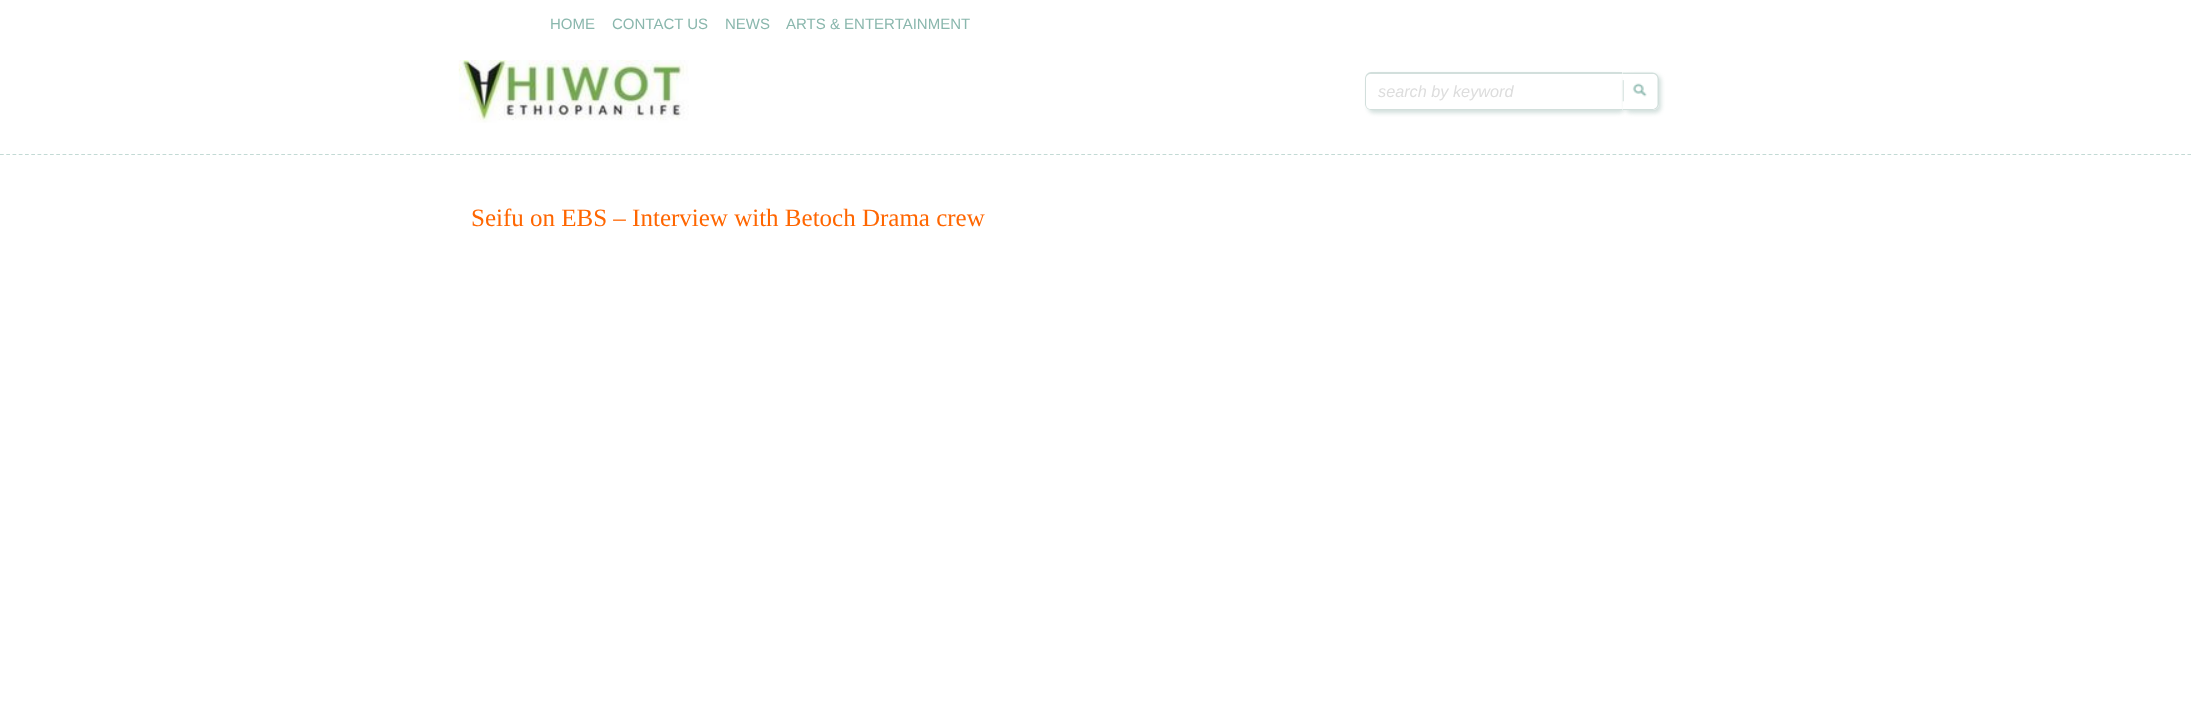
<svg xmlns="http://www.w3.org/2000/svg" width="2191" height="727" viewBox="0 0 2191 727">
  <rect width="100%" height="100%" fill="rgb(255,255,255)"/>
  <path d="M0 154.5H2191" fill="none" stroke="rgb(195,218,213)" stroke-width="1.2" stroke-dasharray="3.75 2.5"/>
  <g font-family="Liberation Sans" font-size="15" fill="rgb(138,183,173)">
    <text x="550" y="29">HOME</text>
    <text x="612" y="29">CONTACT US</text>
    <text x="725" y="29">NEWS</text>
    <text x="786" y="29">ARTS &amp; ENTERTAINMENT</text>
  </g>
  <image x="458" y="60" width="231" height="63" href="pic1.png"/>
  <rect x="1368" y="75" width="257" height="38" rx="6" fill="rgb(210,223,220)" filter="blur(2px)"/>
  <path d="M1371 73H1623V110H1371C1367.5 110 1365 107.5 1365 104V79C1365 75.5 1367.5 73 1371 73Z" fill="rgb(255,255,255)"/>
  <path d="M1371 72H1622V110H1371C1368 110 1365 107 1365 104V79C1365 75 1368 72 1371 72ZM1371 74H1622V109H1371C1368 109 1366 107 1366 104V79C1366 76 1368 74 1371 74Z" fill="rgb(210,223,220)" fill-rule="evenodd"/>
  <text x="1378" y="97" font-family="Liberation Sans" font-size="16.25" font-style="italic" fill="rgb(221,221,221)">search by keyword</text>
  <rect x="1625" y="75" width="36" height="38" rx="6" fill="rgb(210,223,220)" filter="blur(2px)"/>
  <path d="M1623 73H1653C1656.5 73 1659 75.5 1659 79V104C1659 107.5 1656.5 110 1653 110H1623Z" fill="rgb(255,255,255)"/>
  <image x="1622" y="80" width="25" height="22" href="pic2.png"/>
  <path d="M1622.5 72.5H1652.5C1656 72.5 1659 75.5 1659 79V104C1659 107 1656 110 1652.5 110H1622.5ZM1622.5 74H1652.5C1655.5 74 1657.5 76 1657.5 79V104C1657.5 106.5 1655.5 109 1652.5 109H1622.5Z" fill="rgb(210,223,220)" fill-rule="evenodd"/>
  <text x="471" y="226" font-family="Liberation Serif" font-size="25" fill="rgb(255,102,0)">Seifu on EBS – Interview with Betoch Drama crew</text>
</svg>
